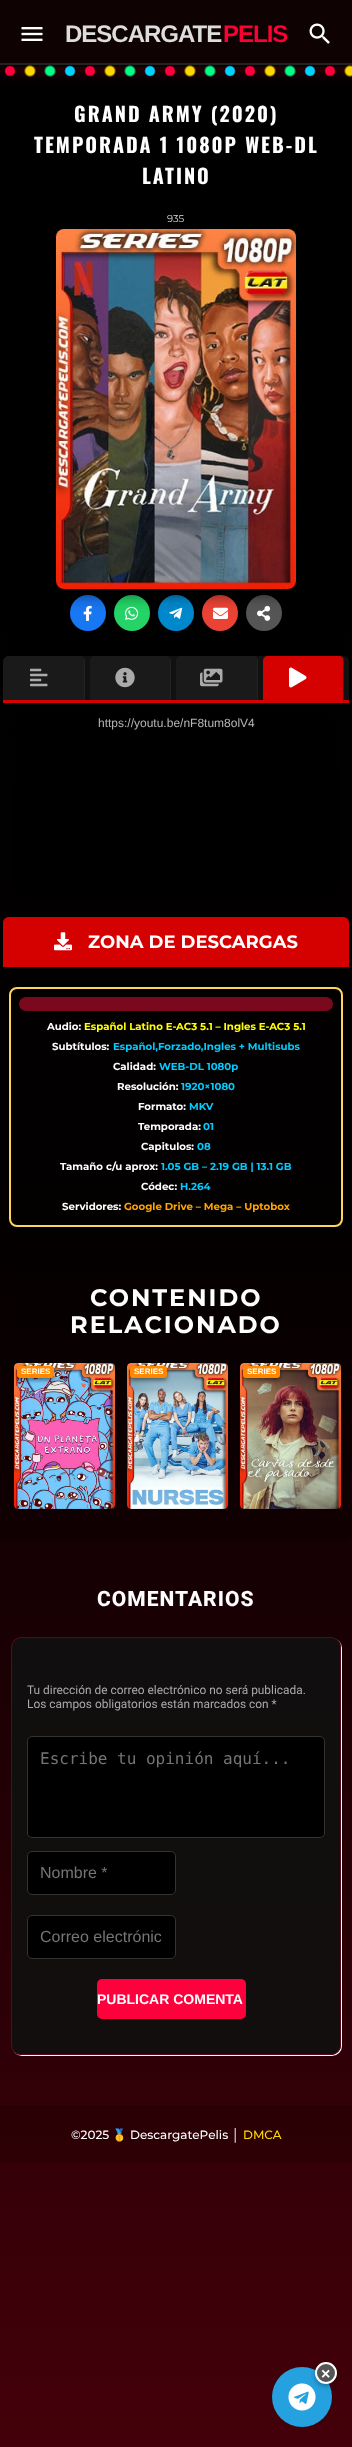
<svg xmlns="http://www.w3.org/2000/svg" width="352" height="2447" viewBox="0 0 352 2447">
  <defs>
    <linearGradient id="g1" gradientUnits="userSpaceOnUse" x1="176" y1="0" x2="176" y2="2447"><stop offset="0" stop-color="rgb(0,0,0)"/><stop offset="0.5" stop-color="rgb(4,0,1)"/><stop offset="1" stop-color="rgb(68,0,10)"/></linearGradient>
    <radialGradient id="g2" gradientUnits="userSpaceOnUse" cx="70" cy="71" r="71"><stop offset="0.06" stop-color="rgb(0,210,255)"/><stop offset="0.08" stop-color="rgb(0,210,255)" stop-opacity="0"/></radialGradient>
    <radialGradient id="g3" gradientUnits="userSpaceOnUse" cx="150" cy="71" r="71"><stop offset="0.06" stop-color="rgb(0,210,255)"/><stop offset="0.08" stop-color="rgb(0,210,255)" stop-opacity="0"/></radialGradient>
    <radialGradient id="g4" gradientUnits="userSpaceOnUse" cx="230" cy="71" r="71"><stop offset="0.06" stop-color="rgb(0,210,255)"/><stop offset="0.08" stop-color="rgb(0,210,255)" stop-opacity="0"/></radialGradient>
    <radialGradient id="g5" gradientUnits="userSpaceOnUse" cx="310" cy="71" r="71"><stop offset="0.06" stop-color="rgb(0,210,255)"/><stop offset="0.08" stop-color="rgb(0,210,255)" stop-opacity="0"/></radialGradient>
    <radialGradient id="g6" gradientUnits="userSpaceOnUse" cx="50" cy="71" r="51"><stop offset="0.08" stop-color="rgb(0,255,136)"/><stop offset="0.12" stop-color="rgb(0,255,136)" stop-opacity="0"/></radialGradient>
    <radialGradient id="g7" gradientUnits="userSpaceOnUse" cx="130" cy="71" r="51"><stop offset="0.08" stop-color="rgb(0,255,136)"/><stop offset="0.12" stop-color="rgb(0,255,136)" stop-opacity="0"/></radialGradient>
    <radialGradient id="g8" gradientUnits="userSpaceOnUse" cx="210" cy="71" r="51"><stop offset="0.08" stop-color="rgb(0,255,136)"/><stop offset="0.12" stop-color="rgb(0,255,136)" stop-opacity="0"/></radialGradient>
    <radialGradient id="g9" gradientUnits="userSpaceOnUse" cx="290" cy="71" r="51"><stop offset="0.08" stop-color="rgb(0,255,136)"/><stop offset="0.12" stop-color="rgb(0,255,136)" stop-opacity="0"/></radialGradient>
    <radialGradient id="g10" gradientUnits="userSpaceOnUse" cx="30" cy="71" r="51"><stop offset="0.08" stop-color="rgb(255,215,0)"/><stop offset="0.12" stop-color="rgb(255,215,0)" stop-opacity="0"/></radialGradient>
    <radialGradient id="g11" gradientUnits="userSpaceOnUse" cx="110" cy="71" r="51"><stop offset="0.08" stop-color="rgb(255,215,0)"/><stop offset="0.12" stop-color="rgb(255,215,0)" stop-opacity="0"/></radialGradient>
    <radialGradient id="g12" gradientUnits="userSpaceOnUse" cx="190" cy="71" r="51"><stop offset="0.08" stop-color="rgb(255,215,0)"/><stop offset="0.12" stop-color="rgb(255,215,0)" stop-opacity="0"/></radialGradient>
    <radialGradient id="g13" gradientUnits="userSpaceOnUse" cx="270" cy="71" r="51"><stop offset="0.08" stop-color="rgb(255,215,0)"/><stop offset="0.12" stop-color="rgb(255,215,0)" stop-opacity="0"/></radialGradient>
    <radialGradient id="g14" gradientUnits="userSpaceOnUse" cx="350" cy="71" r="51"><stop offset="0.08" stop-color="rgb(255,215,0)"/><stop offset="0.12" stop-color="rgb(255,215,0)" stop-opacity="0"/></radialGradient>
    <radialGradient id="g15" gradientUnits="userSpaceOnUse" cx="10" cy="71" r="71"><stop offset="0.06" stop-color="rgb(255,0,60)"/><stop offset="0.08" stop-color="rgb(255,0,60)" stop-opacity="0"/></radialGradient>
    <radialGradient id="g16" gradientUnits="userSpaceOnUse" cx="90" cy="71" r="71"><stop offset="0.06" stop-color="rgb(255,0,60)"/><stop offset="0.08" stop-color="rgb(255,0,60)" stop-opacity="0"/></radialGradient>
    <radialGradient id="g17" gradientUnits="userSpaceOnUse" cx="170" cy="71" r="71"><stop offset="0.06" stop-color="rgb(255,0,60)"/><stop offset="0.08" stop-color="rgb(255,0,60)" stop-opacity="0"/></radialGradient>
    <radialGradient id="g18" gradientUnits="userSpaceOnUse" cx="250" cy="71" r="71"><stop offset="0.06" stop-color="rgb(255,0,60)"/><stop offset="0.08" stop-color="rgb(255,0,60)" stop-opacity="0"/></radialGradient>
    <radialGradient id="g19" gradientUnits="userSpaceOnUse" cx="330" cy="71" r="71"><stop offset="0.06" stop-color="rgb(255,0,60)"/><stop offset="0.08" stop-color="rgb(255,0,60)" stop-opacity="0"/></radialGradient>
    <clipPath id="clip1"><path d="M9 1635H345V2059H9ZM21 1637H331C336.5 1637 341 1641.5 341 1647V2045C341 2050.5 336.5 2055 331 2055H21C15.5 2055 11 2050.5 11 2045V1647C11 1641.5 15.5 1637 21 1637Z" clip-rule="evenodd"/></clipPath>
  </defs>
  <rect width="100%" height="100%" fill="rgb(255,255,255)"/>
  <rect x="0" y="67" width="352" height="2380" fill="url(#g1)"/>
  <rect x="1" y="81" width="350" height="1461" rx="10" fill="rgba(0,0,0,0.13)"/>
  <rect x="0" y="5" width="352" height="67" fill="rgba(255,0,51,0.2)" filter="blur(7.5px)"/>
  <rect x="0" y="0" width="352" height="67" fill="rgb(15,2,2)"/>
  <image x="21" y="27" width="22" height="14" href="pic1.png"/>
  <text x="65" y="42" font-family="Liberation Sans" font-size="24" font-weight="bold" letter-spacing="-1" fill="rgb(221,221,221)">DESCARGATE</text>
  <text x="223" y="42" font-family="Liberation Sans" font-size="24" font-weight="bold" letter-spacing="-1" fill="rgb(255,0,51)">PELIS</text>
  <image x="309" y="23" width="21" height="21" href="pic2.png"/>
  <rect x="64" y="65" width="12" height="12" fill="url(#g2)"/>
  <rect x="144" y="65" width="12" height="12" fill="url(#g3)"/>
  <rect x="224" y="65" width="12" height="12" fill="url(#g4)"/>
  <rect x="304" y="65" width="12" height="12" fill="url(#g5)"/>
  <rect x="44" y="65" width="12" height="12" fill="url(#g6)"/>
  <rect x="124" y="65" width="12" height="12" fill="url(#g7)"/>
  <rect x="204" y="65" width="12" height="12" fill="url(#g8)"/>
  <rect x="284" y="65" width="12" height="12" fill="url(#g9)"/>
  <rect x="24" y="65" width="12" height="12" fill="url(#g10)"/>
  <rect x="104" y="65" width="12" height="12" fill="url(#g11)"/>
  <rect x="184" y="65" width="12" height="12" fill="url(#g12)"/>
  <rect x="264" y="65" width="12" height="12" fill="url(#g13)"/>
  <rect x="344" y="65" width="8" height="12" fill="url(#g14)"/>
  <rect x="4" y="65" width="12" height="12" fill="url(#g15)"/>
  <rect x="84" y="65" width="12" height="12" fill="url(#g16)"/>
  <rect x="164" y="65" width="12" height="12" fill="url(#g17)"/>
  <rect x="244" y="65" width="12" height="12" fill="url(#g18)"/>
  <rect x="324" y="65" width="12" height="12" fill="url(#g19)"/>
  <rect x="0" y="63" width="352" height="2" fill="rgb(34,34,34)"/>
  <g font-family="Oswald" font-size="20" font-weight="bold" letter-spacing="2" fill="rgb(255,255,255)">
    <text x="74" y="122">GRAND ARMY (2020)</text>
    <text x="34" y="153">TEMPORADA 1 1080P WEB-DL</text>
    <text x="142" y="184">LATINO</text>
  </g>
  <rect x="70" y="589" width="212" height="1" fill="rgb(14,13,13)"/>
  <circle cx="88" cy="613" r="18" fill="rgb(24,119,242)"/>
  <image x="83" y="605" width="9" height="16" href="pic4.png"/>
  <circle cx="132" cy="613" r="18" fill="rgb(37,211,102)"/>
  <image x="125" y="606" width="14" height="14" href="pic5.png"/>
  <circle cx="176" cy="613" r="18" fill="rgb(0,136,204)"/>
  <image x="169" y="607" width="14" height="12" href="pic6.png"/>
  <circle cx="220" cy="613" r="18" fill="rgb(234,67,53)"/>
  <image x="213" y="607" width="15" height="12" href="pic7.png"/>
  <circle cx="264" cy="613" r="18" fill="rgb(85,85,85)"/>
  <image x="257" y="605" width="14" height="16" href="pic8.png"/>
  <rect x="56" y="234" width="240" height="360" rx="8" fill="rgba(0,0,0,0.6)" filter="blur(7.5px)"/>
  <image x="56" y="229" width="240" height="360" href="pic3.png"/>
  <text x="167" y="222" font-family="Montserrat" font-size="10" fill="rgb(221,221,221)">935</text>
  <path d="M9 656H343C346.5 656 349 658.5 349 662V703H3V662C3 658.5 5.5 656 9 656Z" fill="rgb(17,17,17)"/>
  <rect x="3" y="700" width="346" height="3" fill="rgb(213,0,0)"/>
  <path d="M9 656H80C83 656 85 658 85 661V700H3V662C3 658.5 5.5 656 9 656Z" fill="rgb(26,26,26)"/>
  <rect x="84" y="659" width="1" height="41" fill="rgb(34,34,34)"/>
  <image x="30" y="668" width="18" height="19" href="pic9.png"/>
  <path d="M95 656H166C169 656 171 658 171 661V700H90V661C90 658 92 656 95 656Z" fill="rgb(26,26,26)"/>
  <rect x="170" y="659" width="1" height="41" fill="rgb(34,34,34)"/>
  <image x="115" y="667" width="20" height="21" href="pic10.png"/>
  <path d="M181 656H253C256 656 258 658 258 661V700H176V661C176 658 178 656 181 656Z" fill="rgb(26,26,26)"/>
  <rect x="257" y="659" width="1" height="41" fill="rgb(34,34,34)"/>
  <image x="200" y="668" width="23" height="19" href="pic11.png"/>
  <path d="M268 656H339C342 656 344 658 344 661V700H263V661C263 658 265 656 268 656Z" fill="rgb(213,0,0)"/>
  <rect x="343" y="659" width="1" height="41" fill="rgb(34,34,34)"/>
  <image x="289" y="667" width="18" height="21" href="pic12.png"/>
  <rect x="12" y="713" width="328" height="185" rx="20" fill="rgb(0,0,0)"/>
  <text x="98" y="727" font-family="Liberation Sans" font-size="12" fill="rgb(181,181,181)">https://youtu.be/nF8tum8olV4</text>
  <path d="M9 917H343C346.5 917 349 919.5 349 923V967H3V923C3 919.5 5.5 917 9 917Z" fill="rgb(213,0,0)"/>
  <image x="54" y="932" width="18" height="19" href="pic13.png"/>
  <text x="88" y="948" font-family="Montserrat" font-size="18" font-weight="bold" fill="rgb(255,255,255)">ZONA DE DESCARGAS</text>
  <rect x="10" y="988" width="332" height="238" rx="7" fill="none" stroke="rgb(254,213,89)" stroke-width="2"/>
  <rect x="19" y="997" width="314" height="14" rx="7" fill="rgb(122,9,29)"/>
  <text x="47" y="1030" font-family="Montserrat" font-size="10.2" font-weight="bold" fill="rgb(255,255,255)">Audio:</text>
  <text x="84" y="1030" font-family="Montserrat" font-size="10.2" font-weight="bold" fill="rgb(255,255,0)">Español Latino E-AC3 5.1 – Ingles E-AC3 5.1</text>
  <text x="52" y="1050" font-family="Montserrat" font-size="10.2" font-weight="bold" fill="rgb(255,255,255)">Subtítulos:</text>
  <text x="113" y="1050" font-family="Montserrat" font-size="10.2" font-weight="bold" fill="rgb(0,204,255)">Español,Forzado,Ingles + Multisubs</text>
  <text x="113" y="1070" font-family="Montserrat" font-size="10.2" font-weight="bold" fill="rgb(255,255,255)">Calidad:</text>
  <text x="159" y="1070" font-family="Montserrat" font-size="10.2" font-weight="bold" fill="rgb(0,204,255)">WEB-DL 1080p</text>
  <text x="117" y="1090" font-family="Montserrat" font-size="10.2" font-weight="bold" fill="rgb(255,255,255)">Resolución:</text>
  <text x="181" y="1090" font-family="Montserrat" font-size="10.2" font-weight="bold" fill="rgb(0,204,255)">1920×1080</text>
  <text x="138" y="1110" font-family="Montserrat" font-size="10.2" font-weight="bold" fill="rgb(255,255,255)">Formato:</text>
  <text x="189" y="1110" font-family="Montserrat" font-size="10.2" font-weight="bold" fill="rgb(0,204,255)">MKV</text>
  <text x="138" y="1130" font-family="Montserrat" font-size="10.2" font-weight="bold" fill="rgb(255,255,255)">Temporada:</text>
  <text x="203" y="1130" font-family="Montserrat" font-size="10.2" font-weight="bold" fill="rgb(0,204,255)">01</text>
  <text x="141" y="1150" font-family="Montserrat" font-size="10.2" font-weight="bold" fill="rgb(255,255,255)">Capitulos:</text>
  <text x="197" y="1150" font-family="Montserrat" font-size="10.2" font-weight="bold" fill="rgb(0,204,255)">08</text>
  <text x="60" y="1170" font-family="Montserrat" font-size="10.2" font-weight="bold" fill="rgb(255,255,255)">Tamaño c/u aprox:</text>
  <text x="161" y="1170" font-family="Montserrat" font-size="10.2" font-weight="bold" fill="rgb(0,204,255)">1.05 GB – 2.19 GB | 13.1 GB</text>
  <text x="141" y="1190" font-family="Montserrat" font-size="10.2" font-weight="bold" fill="rgb(255,255,255)">Códec:</text>
  <text x="180" y="1190" font-family="Montserrat" font-size="10.2" font-weight="bold" fill="rgb(0,204,255)">H.264</text>
  <text x="62" y="1210" font-family="Montserrat" font-size="10.2" font-weight="bold" fill="rgb(255,255,255)">Servidores:</text>
  <text x="124" y="1210" font-family="Montserrat" font-size="10.2" font-weight="bold" fill="rgb(255,165,0)">Google Drive – Mega – Uptobox</text>
  <g font-family="Montserrat" font-size="24" font-weight="bold" letter-spacing="2" fill="rgb(255,255,255)">
    <text x="90" y="1306">CONTENIDO</text>
    <text x="70" y="1333">RELACIONADO</text>
  </g>
  <image x="14" y="1363" width="101" height="146" href="pic14.png"/>
  <rect x="17" y="1368" width="37" height="12" rx="3" fill="rgba(0,0,0,0.5)" filter="blur(2px)"/>
  <rect x="17" y="1366" width="37" height="12" rx="3" fill="rgb(255,136,0)"/>
  <text x="21" y="1374" font-family="Liberation Sans" font-size="8" font-weight="bold" fill="rgb(255,255,255)">SERIES</text>
  <image x="127" y="1363" width="101" height="146" href="pic15.png"/>
  <rect x="130" y="1368" width="37" height="12" rx="3" fill="rgba(0,0,0,0.5)" filter="blur(2px)"/>
  <rect x="130" y="1366" width="37" height="12" rx="3" fill="rgb(255,136,0)"/>
  <text x="134" y="1374" font-family="Liberation Sans" font-size="8" font-weight="bold" fill="rgb(255,255,255)">SERIES</text>
  <image x="240" y="1363" width="101" height="146" href="pic16.png"/>
  <rect x="243" y="1368" width="37" height="12" rx="3" fill="rgba(0,0,0,0.5)" filter="blur(2px)"/>
  <rect x="243" y="1366" width="37" height="12" rx="3" fill="rgb(255,136,0)"/>
  <text x="247" y="1374" font-family="Liberation Sans" font-size="8" font-weight="bold" fill="rgb(255,255,255)">SERIES</text>
  <text x="97" y="1606" font-family="Roboto" font-size="21" font-weight="800" letter-spacing="1" fill="rgb(255,255,255)">COMENTARIOS</text>
  <g clip-path="url(#clip1)">
    <rect x="12" y="1638" width="330" height="418" rx="10" fill="rgb(255,255,255)" filter="blur(0.5px)"/>
  </g>
  <rect x="11" y="1637" width="330" height="418" rx="10" fill="rgba(15,15,15,0.9)"/>
  <rect x="11.5" y="1637.5" width="329" height="417" rx="9.5" fill="none" stroke="rgba(255,0,60,0.3)"/>
  <g font-family="Roboto" font-size="11.9" fill="rgb(170,170,170)">
    <text>
      <tspan x="27" y="1694">Tu dirección de correo electrónico no será publicada.</tspan>
      <tspan x="27" y="1708">Los campos obligatorios están marcados con *</tspan>
    </text>
  </g>
  <rect x="27.5" y="1736.5" width="297" height="101" rx="4.5" fill="rgb(0,0,0)" stroke="rgb(51,51,51)"/>
  <text x="40" y="1764" font-family="DejaVu Sans Mono" font-size="16" fill="rgb(117,117,117)">Escribe tu opinión aquí...</text>
  <rect x="27.5" y="1851.5" width="148" height="43" rx="4.5" fill="rgb(0,0,0)" stroke="rgb(51,51,51)"/>
  <text x="40" y="1878" font-family="Liberation Sans" font-size="16" fill="rgb(117,117,117)">Nombre *</text>
  <rect x="27.5" y="1915.5" width="148" height="43" rx="4.5" fill="rgb(0,0,0)" stroke="rgb(51,51,51)"/>
  <text x="40" y="1942" font-family="Liberation Sans" font-size="16" fill="rgb(117,117,117)">Correo electrónic</text>
  <rect x="97" y="1979" width="149" height="40" rx="5" fill="rgb(255,0,60)"/>
  <text x="97" y="2004" font-family="Liberation Sans" font-size="14" font-weight="bold" fill="rgb(255,255,255)">PUBLICAR COMENTA</text>
  <rect x="0" y="2107" width="352" height="56" fill="rgba(0,0,0,0.15)"/>
  <rect x="0" y="2106" width="352" height="1" fill="rgb(36,0,5)"/>
  <text x="71" y="2139" font-family="Montserrat" font-size="12" font-weight="500" fill="rgb(255,255,255)">©2025</text>
  <text x="112" y="2139" font-family="Noto Color Emoji" font-size="12" fill="rgb(255,255,255)">🥇</text>
  <text x="130" y="2139" font-family="Montserrat" font-size="12" font-weight="500" fill="rgb(255,255,255)">DescargatePelis</text>
  <text x="232" y="2139" font-family="Liberation Sans" font-size="12" fill="rgb(255,255,255)">│</text>
  <text x="243" y="2139" font-family="Montserrat" font-size="12" font-weight="500" fill="rgb(255,215,0)">DMCA</text>
  <circle cx="302" cy="2397" r="30" fill="rgb(36,161,222)"/>
  <image x="288" y="2383" width="28" height="28" href="pic17.png"/>
  <rect x="315" y="2364" width="22" height="22" rx="11" fill="rgba(0,0,0,0.3)" filter="blur(2.5px)"/>
  <circle cx="326" cy="2373" r="10" fill="rgb(85,85,85)" stroke="rgb(255,255,255)" stroke-width="2"/>
  <text x="321" y="2379" font-family="Liberation Sans" font-size="16" font-weight="bold" fill="rgb(255,255,255)">×</text>
</svg>
